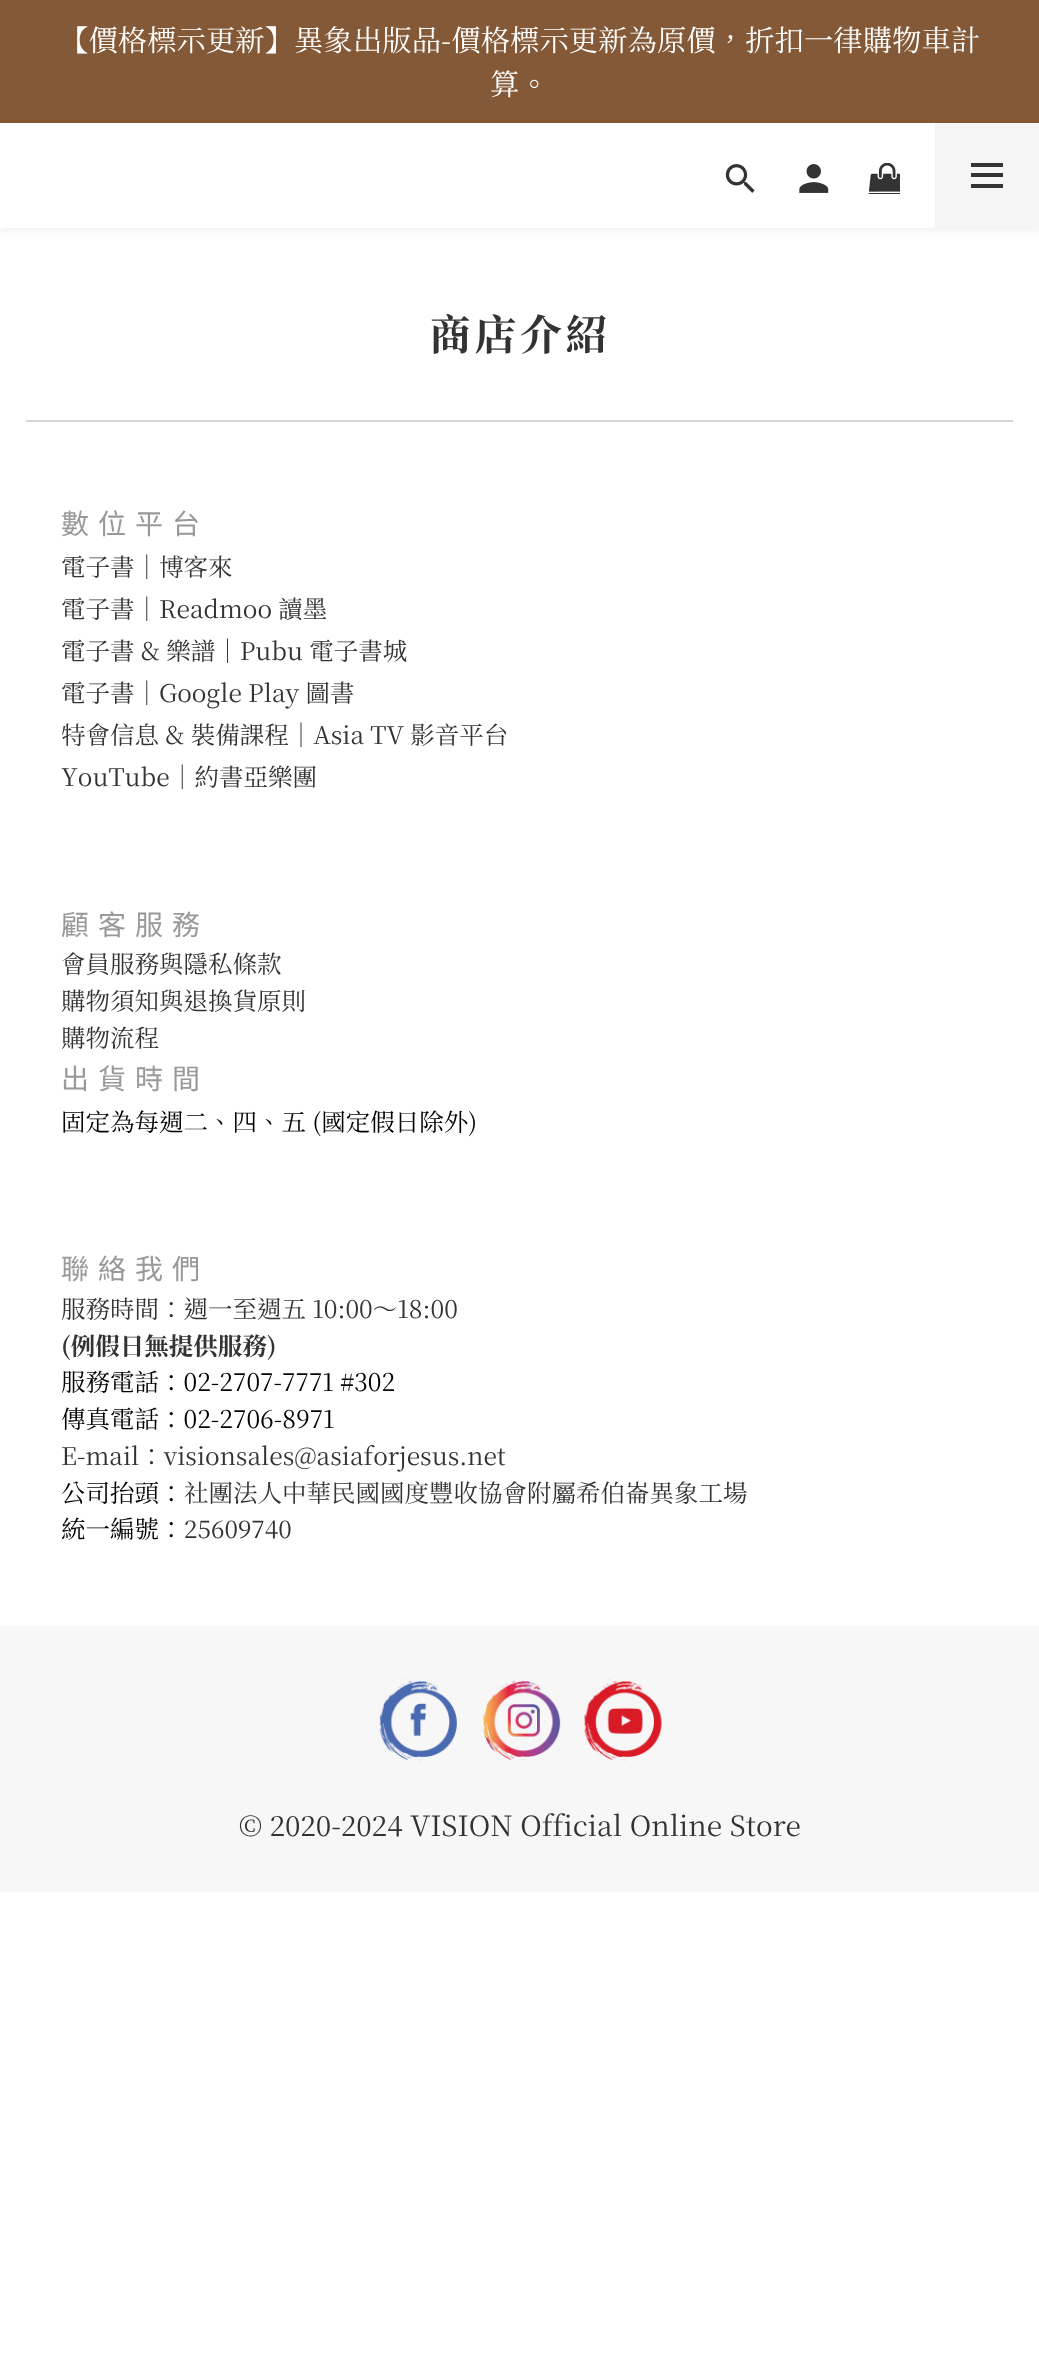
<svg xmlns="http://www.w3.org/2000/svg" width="1039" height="2363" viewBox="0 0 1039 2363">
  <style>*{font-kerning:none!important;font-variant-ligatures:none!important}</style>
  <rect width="100%" height="100%" fill="rgb(255,255,255)"/>
  <rect x="0" y="0" width="1039" height="123" fill="rgb(132,89,55)"/>
  <g font-family="Noto Serif TC" font-size="29.4" fill="rgb(255,255,255)">
    <text x="59" y="51">【價格標示更新】異象出版品-價格標示更新為原價，折扣一律購物車計</text>
    <text x="490" y="95">算。</text>
  </g>
  <rect x="0" y="126" width="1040" height="105" fill="rgba(0,0,0,0.06)" filter="blur(5px)"/>
  <rect x="0" y="123" width="935" height="105" fill="rgb(255,255,255)"/>
  <image x="725" y="164" width="30" height="29" href="pic1.png"/>
  <image x="799" y="164" width="30" height="29" href="pic2.png"/>
  <image x="868" y="163" width="32" height="31" href="pic3.png"/>
  <rect x="935" y="123" width="104" height="105" fill="rgb(245,245,245)"/>
  <rect x="971" y="173" width="32" height="4" fill="rgb(51,51,51)"/>
  <rect x="971" y="163" width="32" height="4" fill="rgb(51,51,51)"/>
  <rect x="971" y="184" width="32" height="4" fill="rgb(51,51,51)"/>
  <text x="429" y="350" font-family="Noto Serif TC" font-size="42" font-weight="bold" letter-spacing="3.5" fill="rgb(51,51,51)">商店介紹</text>
  <rect x="26" y="420" width="987" height="2" fill="rgb(214,214,214)"/>
  <text x="61" y="534" font-family="Noto Sans TC" font-size="28" letter-spacing="9" fill="rgb(153,153,153)">數位平台</text>
  <g font-family="Noto Serif TC" font-size="24.5" fill="rgb(51,51,51)">
    <text>
      <tspan x="61" y="576">電子書｜博客來</tspan>
      <tspan x="61" y="618">電子書｜Readmoo 讀墨</tspan>
      <tspan x="61" y="660">電子書 &amp; 樂譜｜Pubu 電子書城</tspan>
      <tspan x="61" y="702">電子書｜Google Play 圖書</tspan>
      <tspan x="61" y="744">特會信息 &amp; 裝備課程｜Asia TV 影音平台</tspan>
      <tspan x="61" y="786">YouTube</tspan>
    </text>
    <text x="170" y="786">｜約書亞樂團</text>
  </g>
  <text x="61" y="935" font-family="Noto Sans TC" font-size="28" letter-spacing="9" fill="rgb(153,153,153)">顧客服務</text>
  <g font-family="Noto Serif TC" font-size="24.5" fill="rgb(51,51,51)">
    <text>
      <tspan x="61" y="973">會員服務與隱私條款</tspan>
      <tspan x="61" y="1010">購物須知與退換貨原則</tspan>
      <tspan x="61" y="1047">購物流程</tspan>
    </text>
  </g>
  <text x="61" y="1089" font-family="Noto Sans TC" font-size="28" letter-spacing="9" fill="rgb(153,153,153)">出貨時間</text>
  <text x="61" y="1131" font-family="Noto Serif TC" font-size="24.5" fill="rgb(0,0,0)">固定為每週二、四、五 (國定假日除外)</text>
  <text x="61" y="1279" font-family="Noto Sans TC" font-size="28" letter-spacing="9" fill="rgb(153,153,153)">聯絡我們</text>
  <text x="61" y="1318" font-family="Noto Serif TC" font-size="24.5" fill="rgb(51,51,51)">服務時間：週一至週五 10:00～18:00</text>
  <text x="61" y="1355" font-family="Noto Serif TC" font-size="24.5" font-weight="bold" fill="rgb(51,51,51)">(例假日無提供服務)</text>
  <g font-family="Noto Serif TC" font-size="24.5" fill="rgb(0,0,0)">
    <text>
      <tspan x="61" y="1391">服務電話：02-2707-7771 #302</tspan>
      <tspan x="61" y="1428">傳真電話：02-2706-8971</tspan>
    </text>
  </g>
  <text x="61" y="1465" font-family="Noto Serif TC" font-size="24.5" fill="rgb(51,51,51)">E-mail：visionsales@asiaforjesus.net</text>
  <text x="61" y="1502" font-family="Noto Serif TC" font-size="24.5" fill="rgb(0,0,0)">公司抬頭：</text>
  <text x="184" y="1502" font-family="Noto Serif TC" font-size="24.5" fill="rgb(51,51,51)">社團法人中華民國國度豐收協會附屬希伯崙異象工場</text>
  <text x="61" y="1538" font-family="Noto Serif TC" font-size="24.5" fill="rgb(0,0,0)">統一編號：</text>
  <text x="184" y="1538" font-family="Noto Serif TC" font-size="24.5" fill="rgb(51,51,51)">25609740</text>
  <rect x="0" y="1626" width="1039" height="266" fill="rgb(247,247,247)"/>
  <image x="379" y="1679" width="78" height="82" href="pic4.png"/>
  <image x="483" y="1679" width="78" height="81" href="pic5.png"/>
  <image x="584" y="1679" width="78" height="82" href="pic6.png"/>
  <text x="239" y="1836" word-spacing="0.5" font-family="Noto Serif TC" font-size="28" fill="rgb(51,51,51)">© 2020-2024 VISION Official Online Store</text>
</svg>
